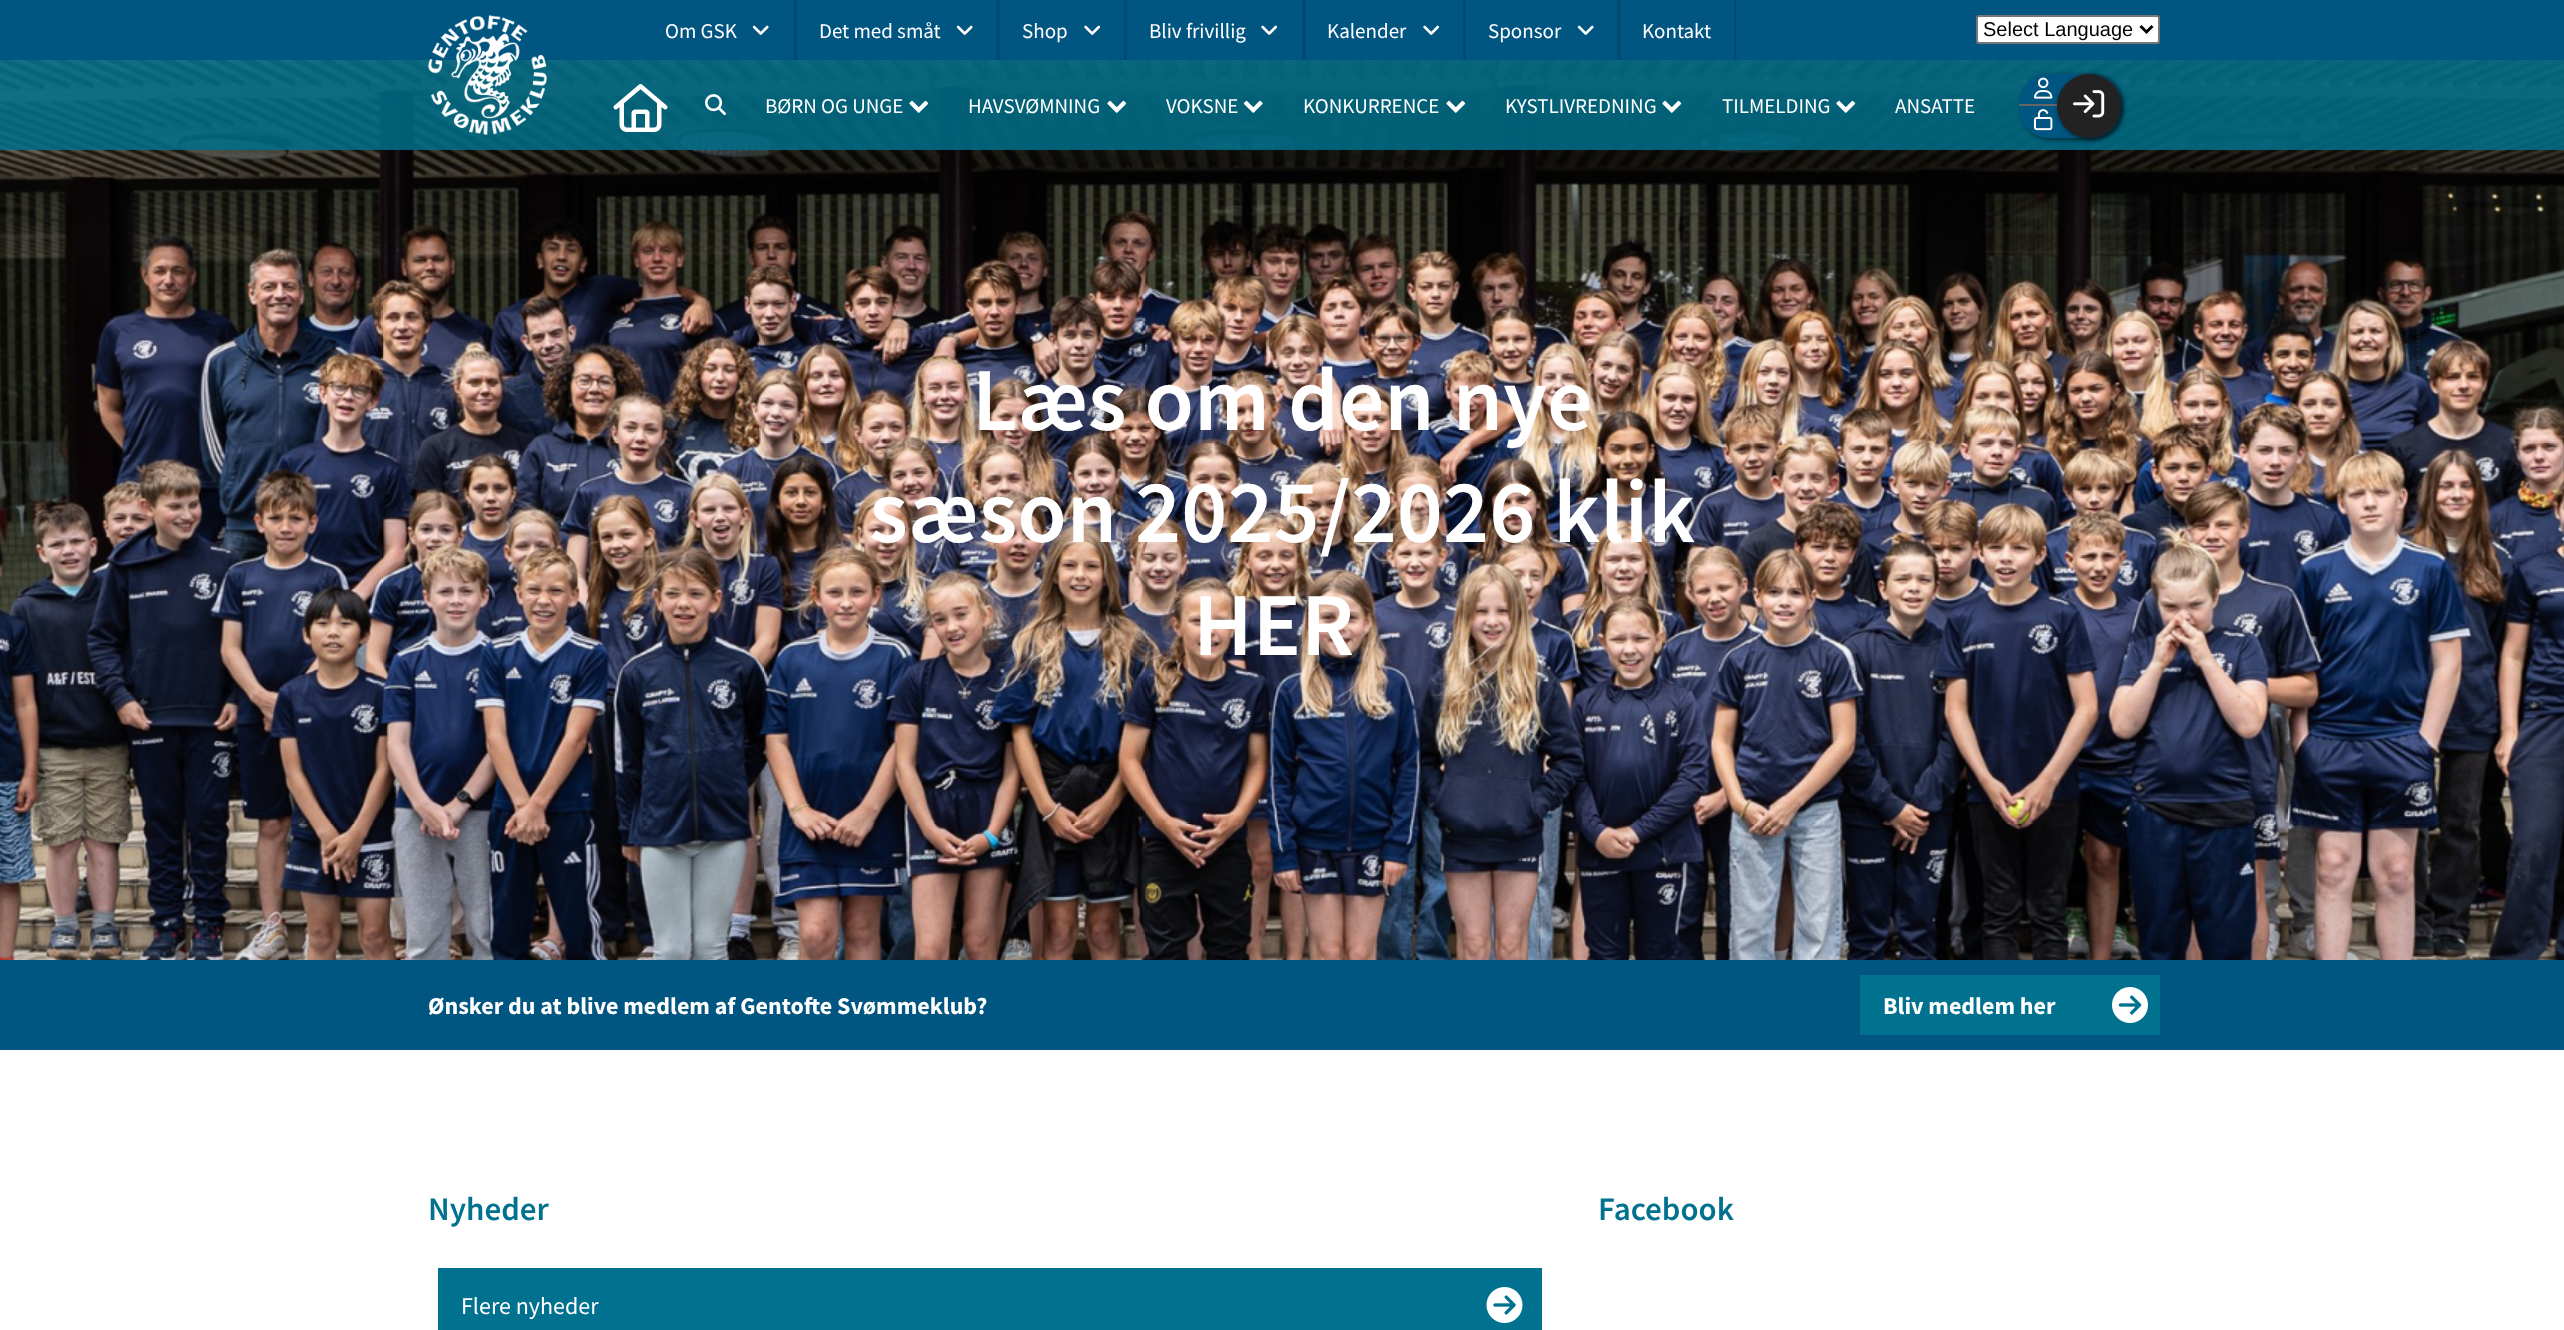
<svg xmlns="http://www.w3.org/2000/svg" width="2564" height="1330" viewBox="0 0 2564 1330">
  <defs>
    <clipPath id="clip1"><rect x="2019" y="74" width="102" height="64" rx="30"/></clipPath>
  </defs>
  <rect width="100%" height="100%" fill="rgb(255,255,255)"/>
  <rect x="0" y="0" width="2564" height="60" fill="rgb(1,85,129)"/>
  <rect x="794" y="0" width="3" height="60" fill="rgb(0,75,114)"/>
  <text x="665" y="38" font-family="Source Sans Pro" font-size="21" fill="rgb(255,255,255)">Om GSK</text>
  <image x="752" y="25" width="17" height="10" href="pic1.png"/>
  <rect x="996" y="0" width="4" height="60" fill="rgb(0,75,114)"/>
  <text x="819" y="38" font-family="Source Sans Pro" font-size="21" fill="rgb(255,255,255)">Det med småt</text>
  <image x="956" y="25" width="17" height="10" href="pic1.png"/>
  <rect x="1124" y="0" width="3" height="60" fill="rgb(0,75,114)"/>
  <text x="1022" y="38" font-family="Source Sans Pro" font-size="21" fill="rgb(255,255,255)">Shop</text>
  <image x="1084" y="25" width="16" height="10" href="pic2.png"/>
  <rect x="1302" y="0" width="4" height="60" fill="rgb(0,75,114)"/>
  <text x="1149" y="38" font-family="Source Sans Pro" font-size="21" fill="rgb(255,255,255)">Bliv frivillig</text>
  <image x="1261" y="25" width="16" height="10" href="pic2.png"/>
  <rect x="1463" y="0" width="3" height="60" fill="rgb(0,75,114)"/>
  <text x="1327" y="38" font-family="Source Sans Pro" font-size="21" fill="rgb(255,255,255)">Kalender</text>
  <image x="1423" y="25" width="16" height="10" href="pic2.png"/>
  <rect x="1617" y="0" width="4" height="60" fill="rgb(0,75,114)"/>
  <text x="1488" y="38" font-family="Source Sans Pro" font-size="21" fill="rgb(255,255,255)">Sponsor</text>
  <image x="1577" y="25" width="17" height="10" href="pic1.png"/>
  <rect x="1734" y="0" width="2" height="60" fill="rgb(0,75,114)"/>
  <text x="1642" y="38" font-family="Source Sans Pro" font-size="21" fill="rgb(255,255,255)">Kontakt</text>
  <rect x="1977" y="16" width="182" height="27" rx="2" fill="rgb(255,255,255)" stroke="rgb(118,118,118)" stroke-width="2"/>
  <path d="M2140.5 26L2146.5 32L2152.5 26" fill="none" stroke="rgb(0,0,0)" stroke-width="3"/>
  <text x="1983" y="36" font-family="Liberation Sans" font-size="20" fill="rgb(0,0,0)">Select Language</text>
  <image x="0" y="60" width="2564" height="900" href="pic15.png"/>
  <rect x="0" y="60" width="2564" height="90" fill="rgba(0,110,137,0.85)"/>
  <image x="428" y="15" width="119" height="120" href="pic3.png"/>
  <image x="613" y="84" width="55" height="48" href="pic4.png"/>
  <image x="705" y="94" width="21" height="22" href="pic5.png"/>
  <text x="765" y="113" font-family="Source Sans Pro" font-size="21" fill="rgb(255,255,255)">BØRN OG UNGE</text>
  <image x="909" y="100" width="20" height="13" href="pic6.png"/>
  <text x="968" y="113" font-family="Source Sans Pro" font-size="21" fill="rgb(255,255,255)">HAVSVØMNING</text>
  <image x="1107" y="100" width="20" height="13" href="pic7.png"/>
  <text x="1166" y="113" font-family="Source Sans Pro" font-size="21" fill="rgb(255,255,255)">VOKSNE</text>
  <image x="1243" y="100" width="20" height="13" href="pic8.png"/>
  <text x="1303" y="113" font-family="Source Sans Pro" font-size="21" fill="rgb(255,255,255)">KONKURRENCE</text>
  <image x="1446" y="100" width="20" height="13" href="pic9.png"/>
  <text x="1505" y="113" font-family="Source Sans Pro" font-size="21" fill="rgb(255,255,255)">KYSTLIVREDNING</text>
  <image x="1662" y="100" width="20" height="13" href="pic10.png"/>
  <text x="1722" y="113" font-family="Source Sans Pro" font-size="21" fill="rgb(255,255,255)">TILMELDING</text>
  <image x="1836" y="100" width="20" height="13" href="pic11.png"/>
  <text x="1895" y="113" font-family="Source Sans Pro" font-size="21" fill="rgb(255,255,255)">ANSATTE</text>
  <rect x="2021" y="75" width="102" height="65" rx="30" fill="rgba(0,0,0,0.5)" filter="blur(2px)"/>
  <rect x="2019" y="74" width="102" height="64" rx="30" fill="rgb(1,85,129)"/>
  <rect x="2019" y="104" width="39" height="2" fill="rgb(102,102,102)"/>
  <image x="2034" y="77" width="19" height="22" href="pic12.png"/>
  <g clip-path="url(#clip1)">
    <rect x="2069" y="75" width="52" height="30" fill="rgb(1,85,129)"/>
  </g>
  <image x="2034" y="109" width="19" height="22" href="pic13.png"/>
  <g clip-path="url(#clip1)">
    <rect x="2069" y="105" width="52" height="30" fill="rgb(1,85,129)"/>
  </g>
  <rect x="2058" y="75" width="65" height="65" rx="32.5" fill="rgba(0,0,0,0.5)" filter="blur(2px)"/>
  <circle cx="2089" cy="106" r="32" fill="rgb(34,34,34)"/>
  <image x="2073" y="90" width="32" height="28" href="pic14.png"/>
  <g font-family="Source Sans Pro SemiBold" font-size="90" font-weight="600" fill="rgb(255,255,255)">
    <text x="972" y="430">Læs om den nye</text>
    <text x="869" y="542">sæson 2025/2026 klik</text>
    <text x="1193" y="655">HER</text>
  </g>
  <rect x="0" y="960" width="2564" height="90" fill="rgb(0,85,129)"/>
  <text x="428" y="1014" font-family="Source Sans Pro" font-size="24" font-weight="bold" fill="rgb(255,255,255)">Ønsker du at blive medlem af Gentofte Svømmeklub?</text>
  <rect x="1860" y="975" width="300" height="60" fill="rgb(0,114,143)"/>
  <text x="1883" y="1014" font-family="Source Sans Pro" font-size="24" font-weight="bold" fill="rgb(255,255,255)">Bliv medlem her</text>
  <image x="2112" y="987" width="36" height="36" href="pic16.png"/>
  <text x="428" y="1220" font-family="Source Sans Pro SemiBold" font-size="33" font-weight="600" fill="rgb(0,114,143)">Nyheder</text>
  <rect x="438" y="1268" width="1104" height="62" fill="rgb(0,114,143)"/>
  <text x="461" y="1314" font-family="Source Sans Pro" font-size="24" fill="rgb(255,255,255)">Flere nyheder</text>
  <image x="1486" y="1287" width="37" height="36" href="pic17.png"/>
  <text x="1598" y="1220" font-family="Source Sans Pro SemiBold" font-size="33" font-weight="600" fill="rgb(0,114,143)">Facebook</text>
</svg>
